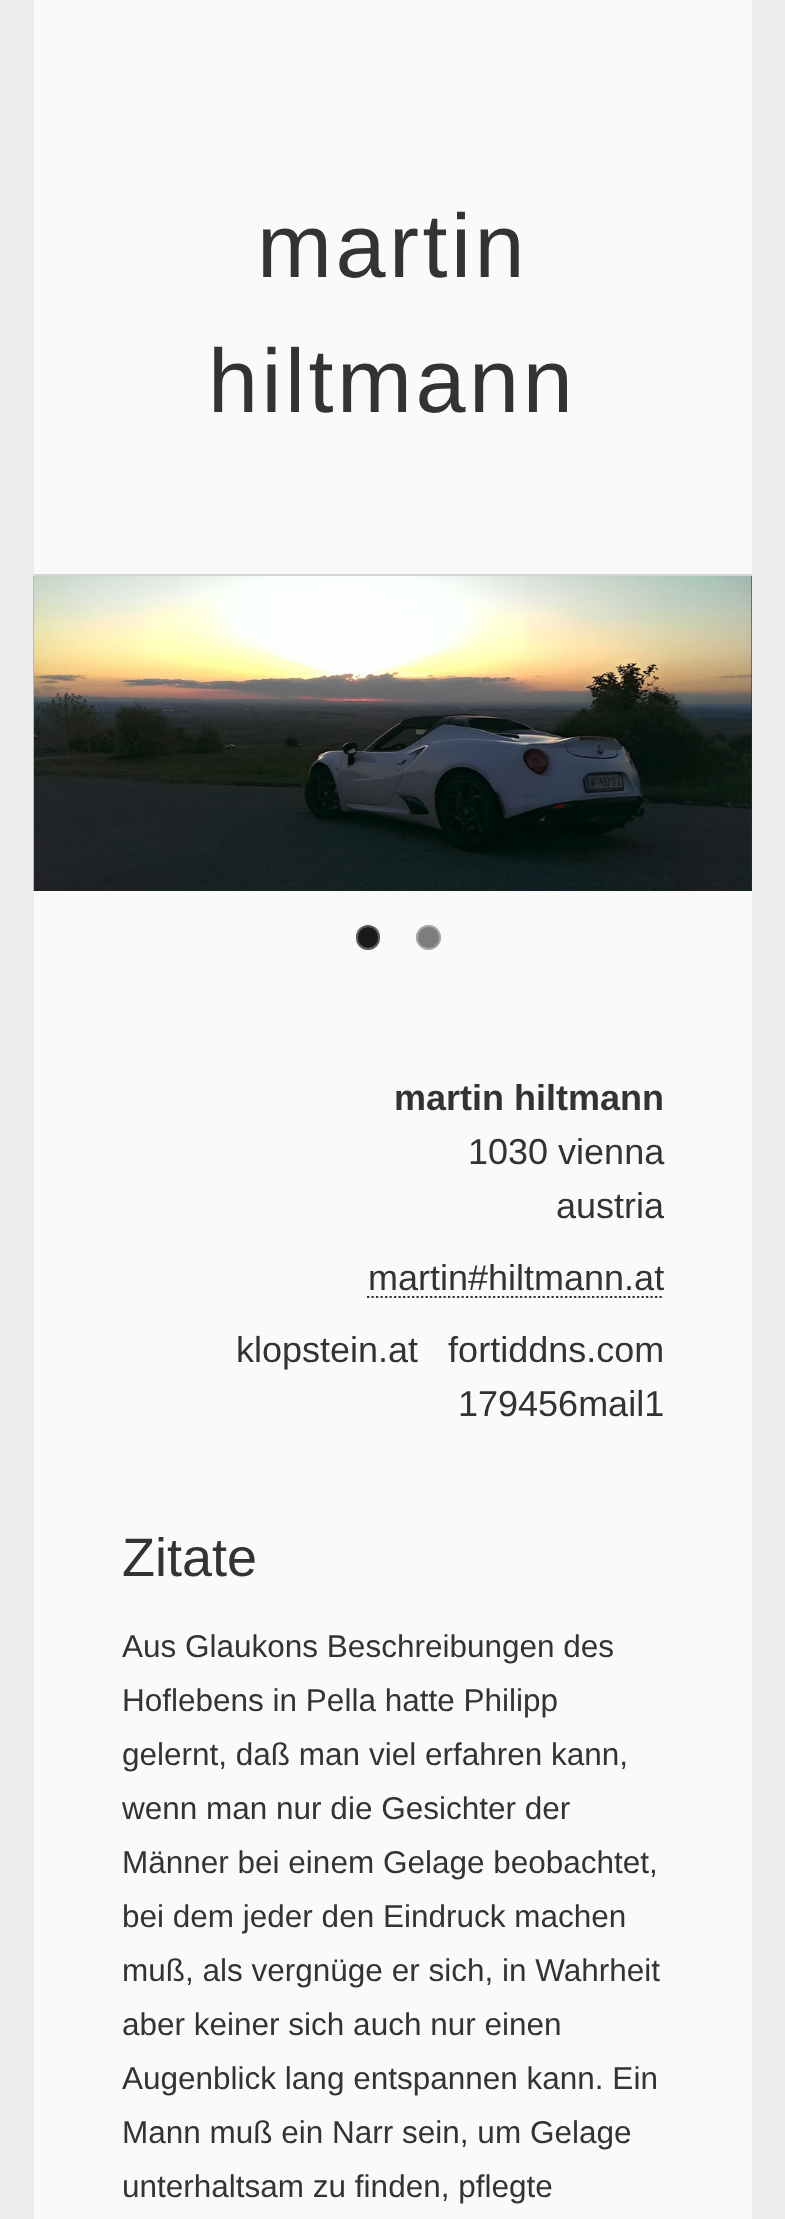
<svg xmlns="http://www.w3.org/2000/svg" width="785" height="2219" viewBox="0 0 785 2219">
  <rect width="100%" height="100%" fill="rgb(237,237,237)"/>
  <rect x="34" y="0" width="718" height="574" fill="rgb(250,250,250)"/>
  <g font-family="Liberation Sans" font-size="90" letter-spacing="3.5" fill="rgb(51,51,51)">
    <text x="257" y="277">martin</text>
    <text x="208" y="412">hiltmann</text>
  </g>
  <rect x="34" y="574" width="718" height="2" fill="rgb(212,212,212)"/>
  <rect x="751" y="576" width="1" height="315" fill="rgb(42,43,46)"/>
  <image x="33" y="576" width="1" height="315" href="pic1.png"/>
  <image x="34" y="576" width="718" height="315" href="pic2.png"/>
  <rect x="34" y="891" width="718" height="1328" fill="rgb(250,250,250)"/>
  <rect x="356" y="925" width="24" height="25" rx="12" fill="rgb(25,25,25)"/>
  <rect x="357" y="926" width="22" height="23" rx="11" fill="none" stroke="rgba(255,255,255,0.3)" stroke-width="2"/>
  <circle cx="428.5" cy="937.5" r="12.5" fill="rgb(125,125,125)"/>
  <circle cx="428.5" cy="937.5" r="11.5" fill="none" stroke="rgba(255,255,255,0.3)" stroke-width="2"/>
  <text x="394" y="1110" font-family="Liberation Sans" font-size="36" font-weight="bold" fill="rgb(51,51,51)">martin hiltmann</text>
  <g font-family="Liberation Sans" font-size="36" fill="rgb(51,51,51)">
    <text x="468" y="1164">1030 vienna</text>
    <text x="556" y="1218">austria</text>
    <text x="368" y="1290">martin#hiltmann.at</text>
  </g>
  <path d="M367 1297H664" fill="none" stroke="rgb(51,51,51)" stroke-width="2.2" stroke-dasharray="2.25 2.25"/>
  <g font-family="Liberation Sans" font-size="36" fill="rgb(51,51,51)">
    <text x="236" y="1362" xml:space="preserve">klopstein.at   fortiddns.com</text>
    <text x="458" y="1416">179456mail1</text>
  </g>
  <text x="122" y="1576" font-family="Liberation Sans" font-size="54" fill="rgb(51,51,51)">Zitate</text>
  <g font-family="Liberation Sans" font-size="31.5" fill="rgb(51,51,51)">
    <text>
      <tspan x="122" y="1657">Aus Glaukons Beschreibungen des</tspan>
      <tspan x="122" y="1711">Hoflebens in Pella hatte Philipp</tspan>
      <tspan x="122" y="1765">gelernt, daß man viel erfahren kann,</tspan>
      <tspan x="122" y="1819">wenn man nur die Gesichter der</tspan>
      <tspan x="122" y="1873">Männer bei einem Gelage beobachtet,</tspan>
      <tspan x="122" y="1927">bei dem jeder den Eindruck machen</tspan>
      <tspan x="122" y="1981">muß, als vergnüge er sich, in Wahrheit</tspan>
      <tspan x="122" y="2035">aber keiner sich auch nur einen</tspan>
      <tspan x="122" y="2089">Augenblick lang entspannen kann. Ein</tspan>
      <tspan x="122" y="2143">Mann muß ein Narr sein, um Gelage</tspan>
      <tspan x="122" y="2197">unterhaltsam zu finden, pflegte</tspan>
    </text>
  </g>
</svg>
